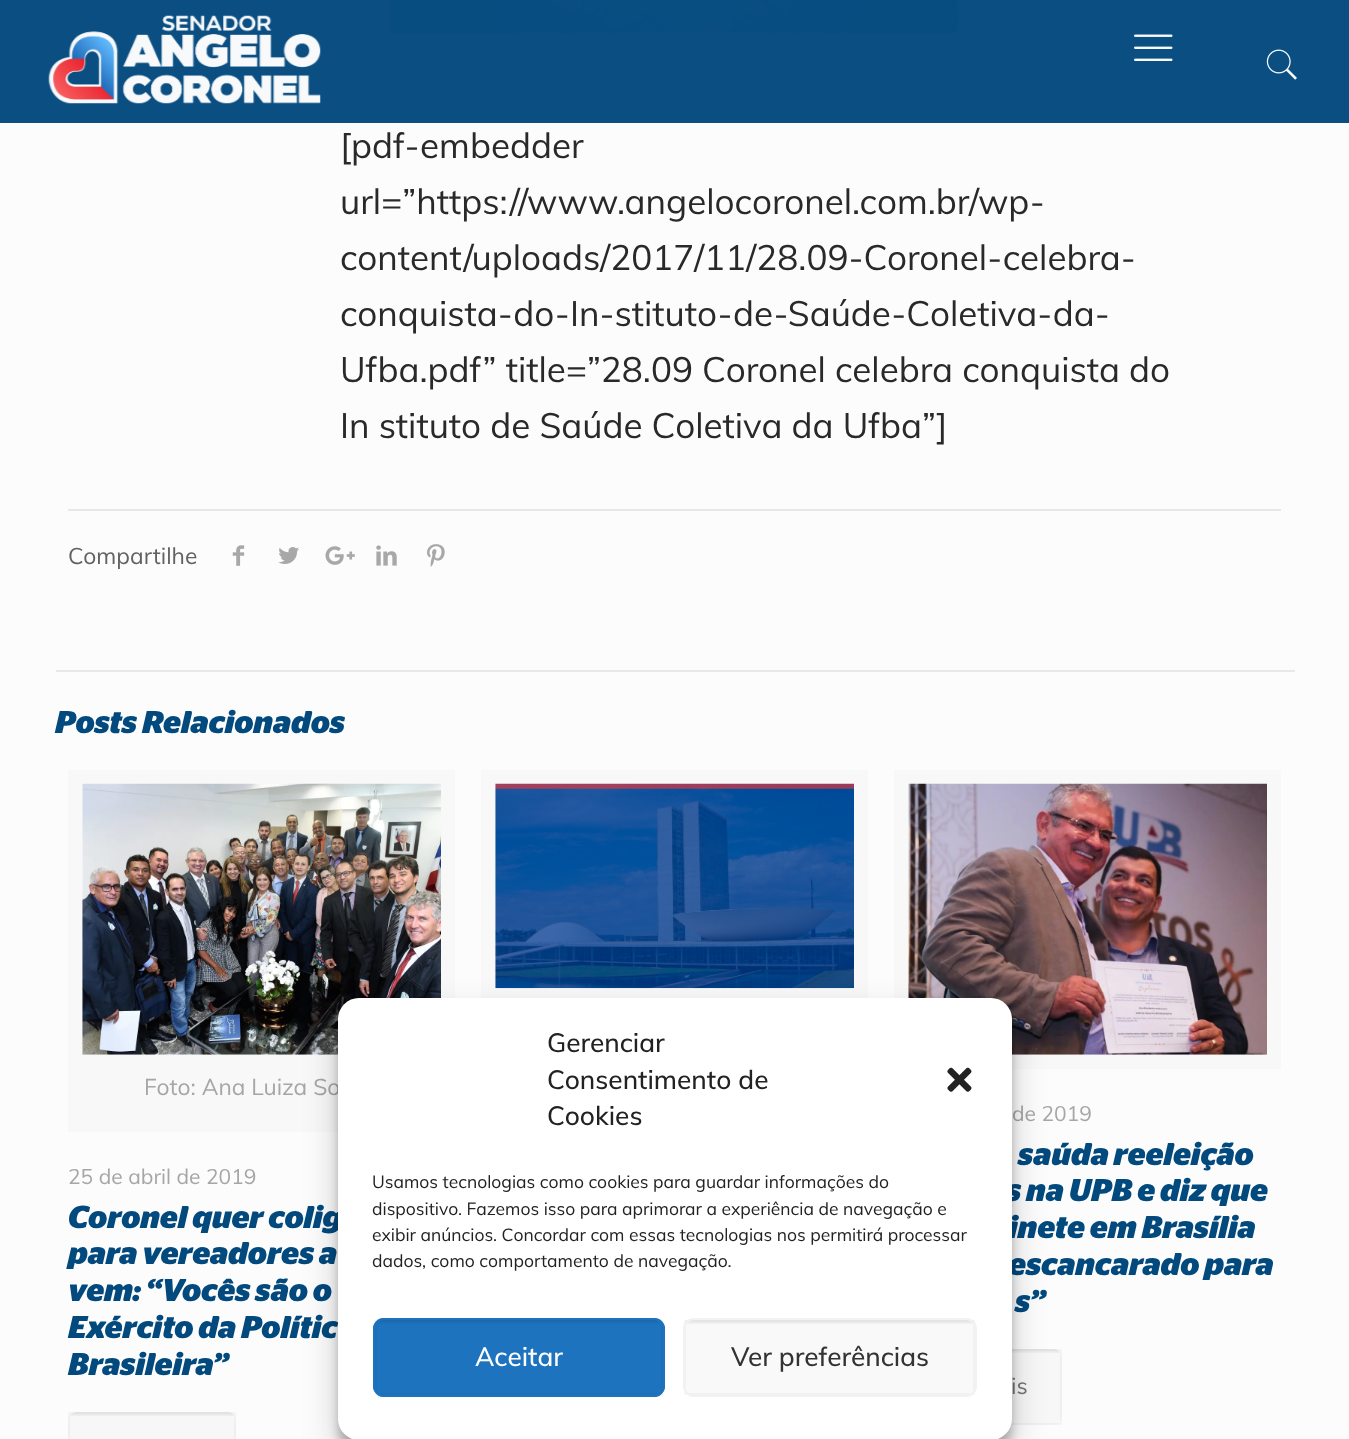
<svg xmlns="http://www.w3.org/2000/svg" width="1349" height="1439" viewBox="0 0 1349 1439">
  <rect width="100%" height="100%" fill="rgb(252,252,252)"/>
  <rect x="0" y="0" width="1349" height="123" fill="rgb(10,78,130)"/>
  <image x="48" y="15" width="273" height="89" href="pic1.png"/>
  <image x="1134" y="34" width="39" height="27" href="pic2.png"/>
  <image x="1266" y="49" width="31" height="31" href="pic3.png"/>
  <image x="390" y="0" width="568" height="33" href="pic4.png"/>
  <g font-family="Muli" font-size="35" fill="rgb(41,41,41)">
    <text>
      <tspan x="340" y="158">[pdf-embedder</tspan>
      <tspan x="340" y="214">url=”https://www.angelocoronel.com.br/wp-</tspan>
      <tspan x="340" y="270">content/uploads/2017/11/28.09-Coronel-celebra-</tspan>
      <tspan x="340" y="326">conquista-do-In-stituto-de-Saúde-Coletiva-da-</tspan>
      <tspan x="340" y="382">Ufba.pdf” title=”28.09 Coronel celebra conquista do</tspan>
      <tspan x="340" y="438">In stituto de Saúde Coletiva da Ufba”]</tspan>
    </text>
  </g>
  <rect x="68" y="509" width="1213" height="2" fill="rgb(232,232,232)"/>
  <text x="68" y="564" font-family="Muli" font-size="22.75" fill="rgb(98,98,98)">Compartilhe</text>
  <image x="232" y="545" width="13" height="21" href="pic5.png"/>
  <image x="278" y="547" width="21" height="17" href="pic6.png"/>
  <image x="325" y="546" width="30" height="19" href="pic7.png"/>
  <image x="376" y="545" width="21" height="21" href="pic8.png"/>
  <image x="427" y="544" width="18" height="23" href="pic9.png"/>
  <rect x="56" y="670" width="1239" height="2" fill="rgb(232,232,232)"/>
  <text x="55" y="733" font-family="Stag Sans" font-size="31.5" font-weight="bold" font-style="italic" fill="rgb(2,73,126)">Posts Relacionados</text>
  <rect x="488" y="777" width="373" height="219" fill="none" stroke="rgb(248,248,248)" stroke-width="14"/>
  <image x="495" y="783" width="359" height="206" href="pic10.png"/>
  <rect x="75" y="777" width="373" height="348" fill="none" stroke="rgb(248,248,248)" stroke-width="14"/>
  <image x="82" y="783" width="359" height="272" href="pic11.png"/>
  <rect x="82" y="1055" width="256" height="63" fill="rgb(248,248,248)"/>
  <text x="144" y="1095" font-family="Muli" font-size="22.75" fill="rgb(166,166,166)">Foto: Ana Luiza So</text>
  <text x="68" y="1184" font-family="Muli" font-size="21" fill="rgb(166,166,166)">25 de abril de 2019</text>
  <g font-family="Stag Sans" font-size="31.5" font-weight="bold" font-style="italic" fill="rgb(2,73,126)">
    <text>
      <tspan x="68" y="1228">Coronel quer colig</tspan>
      <tspan x="68" y="1264">para vereadores a</tspan>
      <tspan x="68" y="1301">vem: “Vocês são o</tspan>
      <tspan x="68" y="1338">Exército da Polític</tspan>
      <tspan x="68" y="1375">Brasileira”</tspan>
    </text>
  </g>
  <rect x="68" y="1412" width="168" height="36" rx="9" fill="rgb(247,247,247)"/>
  <image x="70" y="1412" width="164" height="4" href="pic12.png"/>
  <rect x="69" y="1413" width="166" height="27" fill="none" stroke="rgba(0,0,0,0.03)" stroke-width="2"/>
  <rect x="901" y="777" width="373" height="285" fill="none" stroke="rgb(248,248,248)" stroke-width="14"/>
  <image x="908" y="783" width="359" height="272" href="pic13.png"/>
  <text x="1012" y="1121" font-family="Muli" font-size="21" fill="rgb(166,166,166)">de 2019</text>
  <g font-family="Stag Sans" font-size="31.5" font-weight="bold" font-style="italic" fill="rgb(2,73,126)">
    <text x="1018" y="1165">saúda reeleição</text>
    <text x="1006" y="1201">s na UPB e diz que</text>
    <text>
      <tspan x="1008" y="1238">inete em Brasília</tspan>
      <tspan x="1008" y="1275">escancarado para</tspan>
    </text>
    <text x="1015" y="1312">s”</text>
  </g>
  <rect x="894" y="1349" width="168" height="76" rx="9" fill="rgb(247,247,247)"/>
  <image x="1012" y="1349" width="48" height="4" href="pic14.png"/>
  <rect x="895" y="1350" width="166" height="74" fill="none" stroke="rgba(0,0,0,0.03)" stroke-width="2"/>
  <text x="1011" y="1394" font-family="Muli" font-size="22.75" fill="rgb(116,116,116)">is</text>
  <rect x="338" y="1008" width="674" height="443" rx="21" fill="rgba(0,0,0,0.23)" filter="blur(5px)"/>
  <rect x="338" y="1015" width="674" height="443" rx="21" fill="rgba(0,0,0,0.19)" filter="blur(17.5px)"/>
  <rect x="338" y="998" width="674" height="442" rx="21" fill="rgb(255,255,255)"/>
  <g font-family="Muli" font-size="26.25" font-weight="500" fill="rgb(34,34,34)">
    <text>
      <tspan x="547" y="1052">Gerenciar</tspan>
      <tspan x="547" y="1089">Consentimento de</tspan>
      <tspan x="547" y="1125">Cookies</tspan>
    </text>
  </g>
  <image x="947" y="1067" width="25" height="25" href="pic15.png"/>
  <g font-family="Muli" font-size="17.5" fill="rgb(34,34,34)">
    <text>
      <tspan x="372" y="1188">Usamos tecnologias como cookies para guardar informações do</tspan>
      <tspan x="372" y="1215">dispositivo. Fazemos isso para aprimorar a experiência de navegação e</tspan>
      <tspan x="372" y="1241">exibir anúncios. Concordar com essas tecnologias nos permitirá processar</tspan>
      <tspan x="372" y="1267">dados, como comportamento de navegação.</tspan>
    </text>
  </g>
  <rect x="373" y="1318" width="292" height="79" rx="11" fill="rgb(30,115,190)"/>
  <image x="375" y="1319" width="289" height="5" href="pic16.png"/>
  <rect x="376" y="1321" width="286" height="73" fill="none" stroke="rgba(0,0,0,0.03)" stroke-width="2"/>
  <rect x="374" y="1319" width="290" height="77" rx="10" fill="none" stroke="rgb(30,115,190)" stroke-width="2"/>
  <text x="475" y="1366" font-family="Muli" font-size="26.25" font-weight="500" fill="rgb(255,255,255)">Aceitar</text>
  <rect x="683" y="1318" width="294" height="79" rx="11" fill="rgb(249,249,249)"/>
  <image x="684" y="1319" width="291" height="5" href="pic17.png"/>
  <rect x="685" y="1321" width="289" height="73" fill="none" stroke="rgba(0,0,0,0.03)" stroke-width="2"/>
  <rect x="684" y="1319" width="292" height="77" rx="10" fill="none" stroke="rgb(242,242,242)" stroke-width="2"/>
  <text x="731" y="1366" font-family="Muli" font-size="26.25" font-weight="500" fill="rgb(51,51,51)">Ver preferências</text>
</svg>
